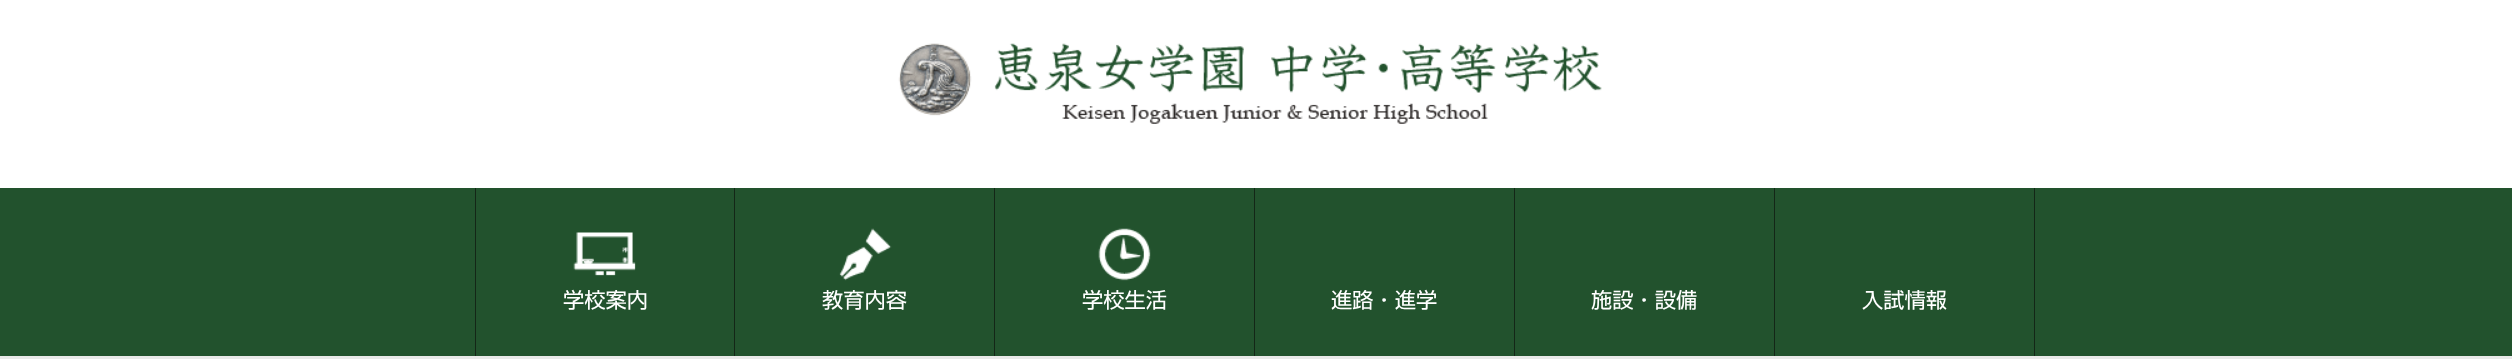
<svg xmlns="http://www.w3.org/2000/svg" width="2512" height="359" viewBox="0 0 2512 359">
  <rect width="100%" height="100%" fill="rgb(255,255,255)"/>
  <image x="898" y="43" width="704" height="81" href="pic1.png"/>
  <rect x="0" y="188" width="2512" height="168" fill="rgb(34,82,45)"/>
  <image x="573" y="232" width="63" height="44" href="pic2.png"/>
  <rect x="734" y="188" width="1" height="168" fill="rgb(20,38,23)"/>
  <rect x="475" y="188" width="1" height="168" fill="rgb(20,38,23)"/>
  <text x="563" y="308" font-family="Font" font-size="21.25" fill="rgb(255,255,255)">学校案内</text>
  <image x="839" y="228" width="53" height="53" href="pic3.png"/>
  <rect x="994" y="188" width="1" height="168" fill="rgb(20,38,23)"/>
  <text x="822" y="308" font-family="Font" font-size="21.25" fill="rgb(255,255,255)">教育内容</text>
  <image x="1098" y="228" width="53" height="53" href="pic4.png"/>
  <rect x="1254" y="188" width="1" height="168" fill="rgb(20,38,23)"/>
  <text x="1082" y="308" font-family="Font" font-size="21.25" fill="rgb(255,255,255)">学校生活</text>
  <rect x="1514" y="188" width="1" height="168" fill="rgb(20,38,23)"/>
  <text x="1331" y="308" font-family="Font" font-size="21.25" fill="rgb(255,255,255)">進路・進学</text>
  <rect x="1774" y="188" width="1" height="168" fill="rgb(20,38,23)"/>
  <text x="1591" y="308" font-family="Font" font-size="21.25" fill="rgb(255,255,255)">施設・設備</text>
  <rect x="2034" y="188" width="1" height="168" fill="rgb(20,38,23)"/>
  <text x="1862" y="308" font-family="Font" font-size="21.25" fill="rgb(255,255,255)">入試情報</text>
  <rect x="0" y="356" width="2512" height="3" fill="rgb(233,233,233)"/>
</svg>
